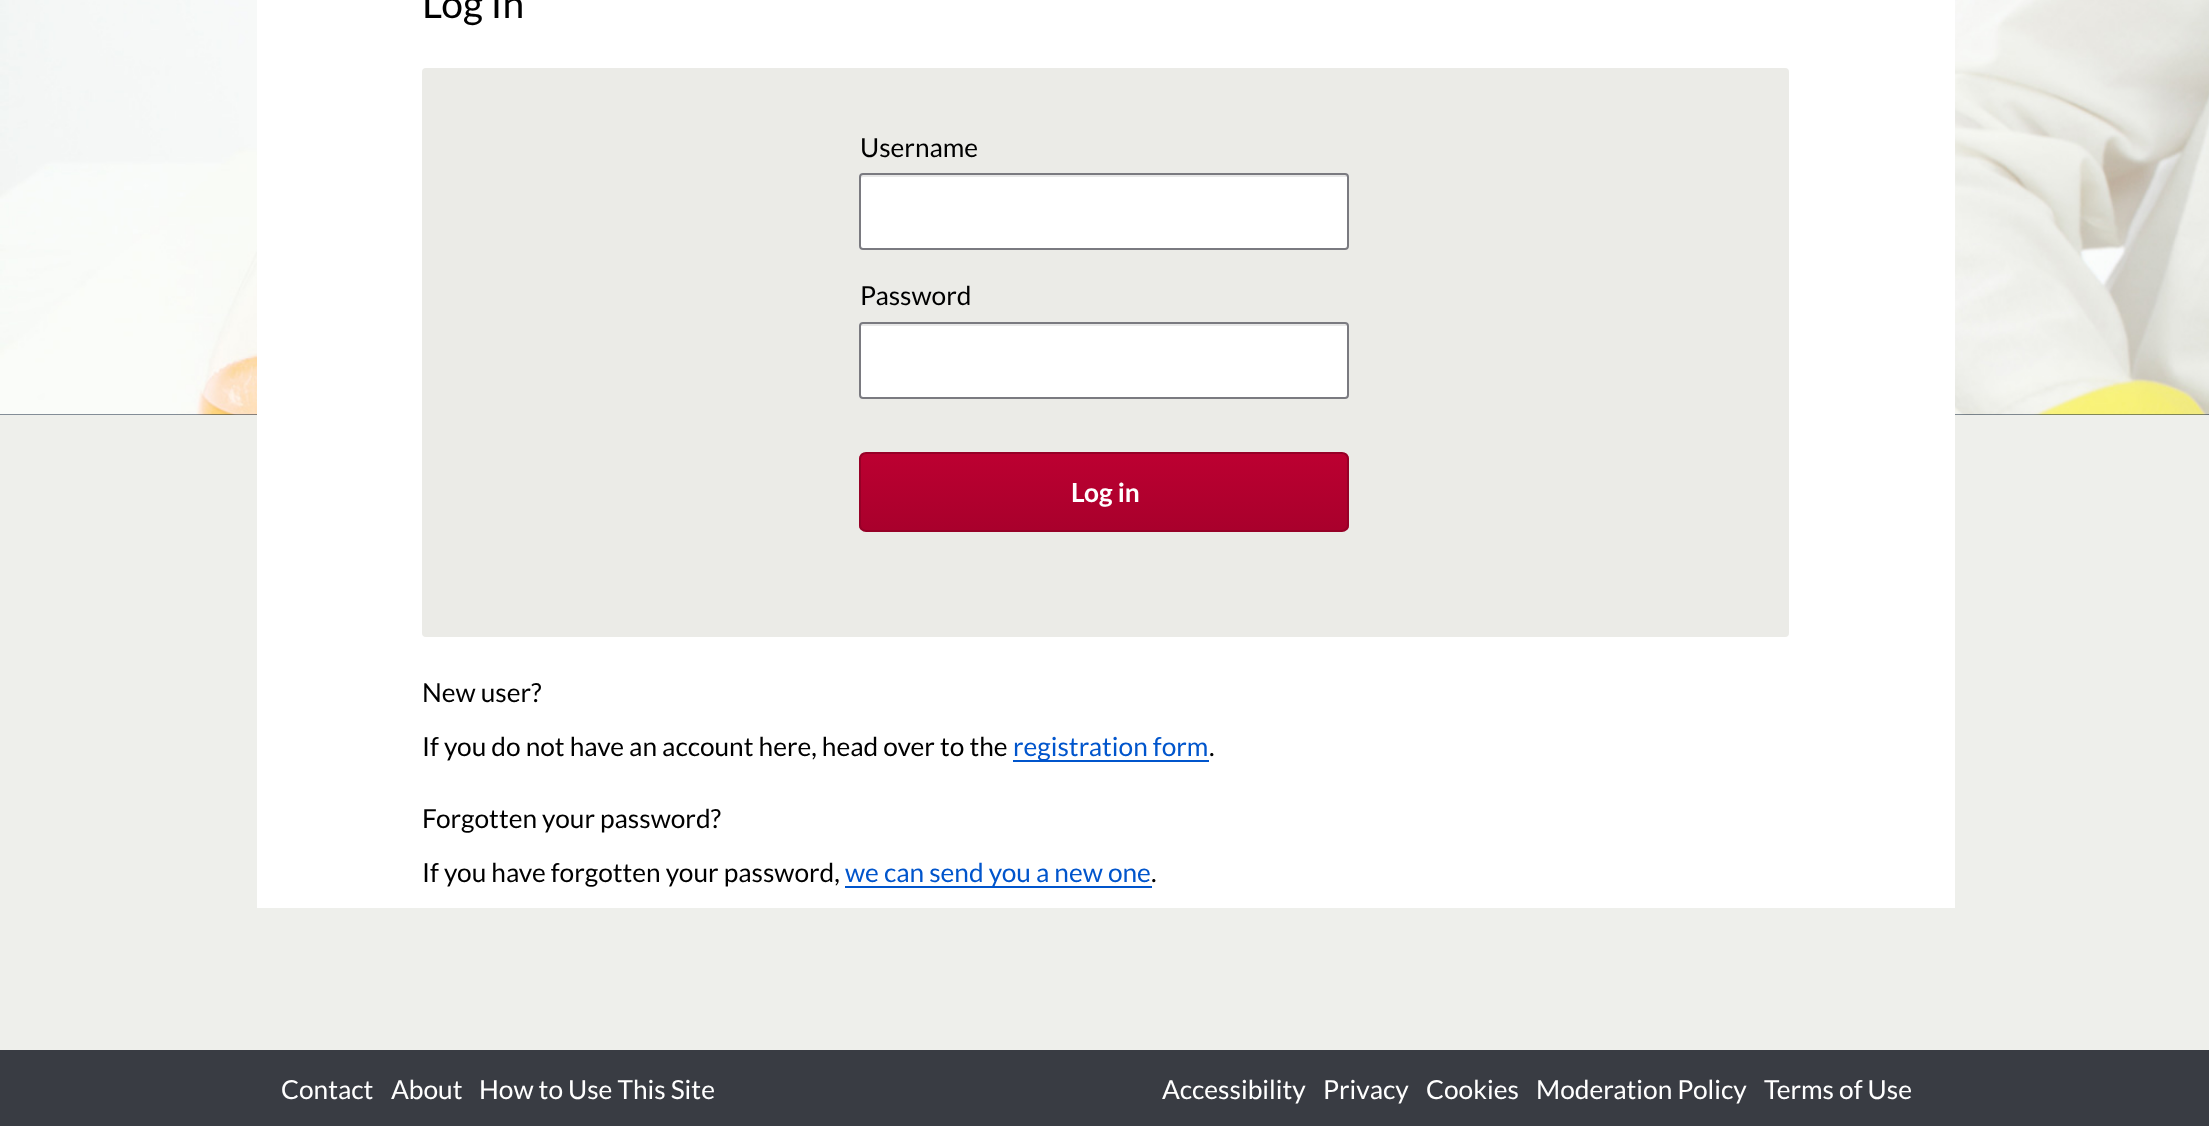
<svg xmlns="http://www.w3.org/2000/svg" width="2209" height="1126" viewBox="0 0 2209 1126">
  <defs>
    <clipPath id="clip1"><rect x="859" y="452" width="490" height="80" rx="7"/></clipPath>
    <linearGradient id="g1" gradientUnits="userSpaceOnUse" x1="1104" y1="453" x2="1104" y2="530"><stop offset="0" stop-color="rgb(188,0,49)"/><stop offset="1" stop-color="rgb(169,0,44)"/></linearGradient>
  </defs>
  <rect width="100%" height="100%" fill="rgb(238,239,235)"/>
  <rect x="0" y="414" width="2209" height="1" fill="rgb(12,30,52)"/>
  <image x="0" y="0" width="2209" height="415" href="pic1.png"/>
  <rect x="257" y="0" width="1698" height="908" fill="rgb(255,255,255)"/>
  <text x="422" y="18" font-family="Lato" font-size="39" fill="rgb(0,0,0)">Log In</text>
  <rect x="422" y="68" width="1367" height="569" rx="4" fill="rgb(235,235,231)"/>
  <text x="860" y="157" font-family="Lato" font-size="26.25" fill="rgb(0,0,0)">Username</text>
  <rect x="859" y="173" width="490" height="77" rx="4" fill="rgb(255,255,255)"/>
  <path d="M863 177H1347L1348 178V176L1346 175H863C861 175 861 177 861 178Z" fill="rgb(232,232,232)"/>
  <rect x="860" y="174" width="488" height="75" rx="3" fill="none" stroke="rgb(122,122,128)" stroke-width="2"/>
  <text x="860" y="305" font-family="Lato" font-size="26.25" fill="rgb(0,0,0)">Password</text>
  <rect x="859" y="322" width="490" height="77" rx="4" fill="rgb(255,255,255)"/>
  <path d="M863 324C862 324 861 325 861 326H1347L1348 327C1348 326 1348 324 1346 324Z" fill="rgb(232,232,232)"/>
  <rect x="860" y="323" width="488" height="75" rx="3" fill="none" stroke="rgb(122,122,128)" stroke-width="2"/>
  <g clip-path="url(#clip1)">
    <rect x="859" y="453" width="490" height="77" fill="url(#g1)"/>
  </g>
  <rect x="860" y="453" width="488" height="78" rx="6" fill="none" stroke="rgb(150,0,39)" stroke-width="2"/>
  <text x="1071" y="502" font-family="Lato" font-size="26.25" font-weight="bold" fill="rgb(255,255,255)">Log in</text>
  <g font-family="Lato" font-size="26.25" fill="rgb(0,0,0)">
    <text x="422" y="702">New user?</text>
    <text x="422" y="756">If you do not have an account here, head over to the</text>
  </g>
  <rect x="1013" y="760" width="196" height="2" fill="rgb(0,85,204)"/>
  <text x="1013" y="756" font-family="Lato" font-size="26.25" fill="rgb(0,85,204)">registration form</text>
  <g font-family="Lato" font-size="26.25" fill="rgb(0,0,0)">
    <text x="1209" y="756">.</text>
    <text x="422" y="828">Forgotten your password?</text>
    <text x="422" y="882">If you have forgotten your password,</text>
  </g>
  <rect x="845" y="886" width="307" height="2" fill="rgb(0,85,204)"/>
  <text x="845" y="882" font-family="Lato" font-size="26.25" fill="rgb(0,85,204)">we can send you a new one</text>
  <text x="1151" y="882" font-family="Lato" font-size="26.25" fill="rgb(0,0,0)">.</text>
  <rect x="0" y="1050" width="2209" height="76" fill="rgb(57,60,67)"/>
  <g font-family="Lato" font-size="26.25" fill="rgb(255,255,255)">
    <text x="281" y="1099">Contact</text>
    <text x="391" y="1099">About</text>
    <text x="479" y="1099">How to Use This Site</text>
    <text x="1162" y="1099">Accessibility</text>
    <text x="1323" y="1099">Privacy</text>
    <text x="1426" y="1099">Cookies</text>
    <text x="1536" y="1099">Moderation Policy</text>
    <text x="1764" y="1099">Terms of Use</text>
  </g>
</svg>
